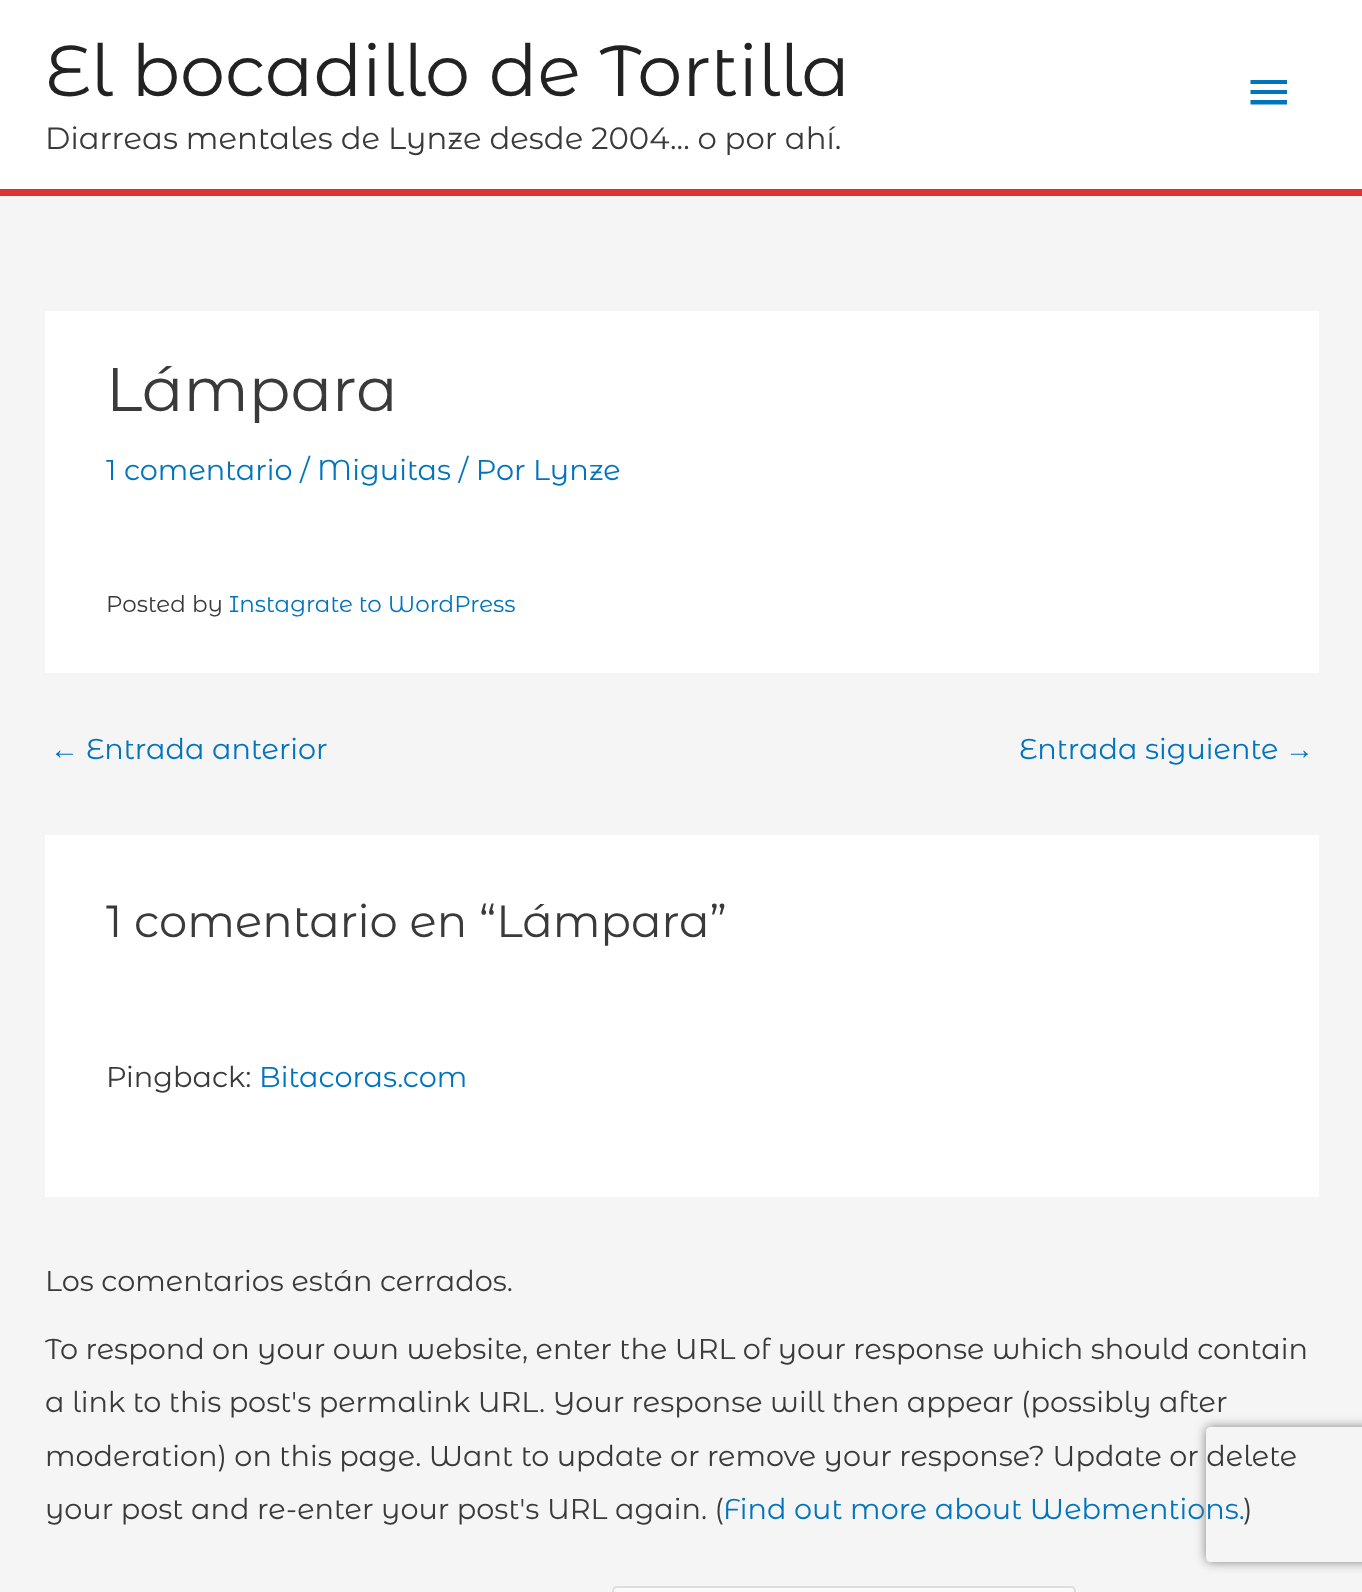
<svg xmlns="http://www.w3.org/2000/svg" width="1362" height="1592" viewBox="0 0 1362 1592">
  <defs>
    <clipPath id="clip1"><path d="M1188 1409H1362V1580H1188ZM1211 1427H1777C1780 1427 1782 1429 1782 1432V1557C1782 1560 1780 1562 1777 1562H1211C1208 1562 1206 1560 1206 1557V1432C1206 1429 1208 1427 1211 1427Z" clip-rule="evenodd"/></clipPath>
  </defs>
  <rect width="100%" height="100%" fill="rgb(245,245,245)"/>
  <rect x="0" y="0" width="1362" height="189" fill="rgb(255,255,255)"/>
  <rect x="0" y="189" width="1362" height="7" fill="rgb(221,51,51)"/>
  <text x="45" y="96" font-family="Montserrat Alternates" font-size="71.75" fill="rgb(34,34,34)">El bocadillo de Tortilla</text>
  <text x="45" y="149" word-spacing="-0.25" font-family="Montserrat Alternates" font-size="30.75" fill="rgb(58,58,58)">Diarreas mentales de Lynze desde 2004... o por ahí.</text>
  <path d="M1250.5 80H1287V84H1250.5ZM1250.5 94V90H1287V94ZM1250.5 104.5V100H1287V104.5Z" fill="rgb(2,116,190)"/>
  <rect x="45" y="311" width="1274" height="362" fill="rgb(255,255,255)"/>
  <text x="106" y="411" font-family="Montserrat Alternates" font-size="61.5" fill="rgb(58,58,58)">Lámpara</text>
  <text x="106" y="480" font-family="Montserrat Alternates" font-size="28.75" fill="rgb(2,116,190)">1 comentario / Miguitas / Por Lynze</text>
  <text x="106" y="612" font-family="Montserrat Alternates" font-size="23" fill="rgb(58,58,58)">Posted by</text>
  <text x="229" y="612" font-family="Montserrat Alternates" font-size="23" fill="rgb(2,116,190)">Instagrate to WordPress</text>
  <text x="50" y="759" font-family="Liberation Sans" font-size="28.75" fill="rgb(2,116,190)">←</text>
  <g font-family="Montserrat Alternates" font-size="28.75" fill="rgb(2,116,190)">
    <text x="86" y="759">Entrada anterior</text>
    <text x="1019" y="759">Entrada siguiente</text>
  </g>
  <text x="1285" y="759" font-family="Liberation Sans" font-size="28.75" fill="rgb(2,116,190)">→</text>
  <rect x="45" y="835" width="1274" height="362" fill="rgb(255,255,255)"/>
  <text x="106" y="937" font-family="Montserrat Alternates" font-size="45" fill="rgb(58,58,58)">1 comentario en “Lámpara”</text>
  <text x="106" y="1087" font-family="Montserrat Alternates" font-size="28.75" fill="rgb(58,58,58)">Pingback:</text>
  <text x="259" y="1087" font-family="Montserrat Alternates" font-size="28.75" fill="rgb(2,116,190)">Bitacoras.com</text>
  <g font-family="Montserrat Alternates" font-size="28.75" fill="rgb(58,58,58)">
    <text x="45" y="1291">Los comentarios están cerrados.</text>
    <text>
      <tspan x="45" y="1359" word-spacing="-0.1">To respond on your own website, enter the URL of your response which should contain</tspan>
      <tspan x="45" y="1412" word-spacing="-0.1">a link to this post's permalink URL. Your response will then appear (possibly after</tspan>
      <tspan x="45" y="1466" word-spacing="-0.1">moderation) on this page. Want to update or remove your response? Update or delete</tspan>
      <tspan x="45" y="1519">your post and re-enter your post's URL again. (</tspan>
    </text>
  </g>
  <text x="723" y="1519" font-family="Montserrat Alternates" font-size="28.75" fill="rgb(2,116,190)">Find out more about Webmentions.</text>
  <text x="1243" y="1519" font-family="Montserrat Alternates" font-size="28.75" fill="rgb(58,58,58)">)</text>
  <rect x="613" y="1587" width="462" height="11" rx="4" fill="rgb(250,250,250)" stroke="rgb(221,221,221)" stroke-width="2"/>
  <g clip-path="url(#clip1)">
    <rect x="1206" y="1427" width="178" height="135" rx="5" fill="rgb(128,128,128)" filter="blur(5.5px)"/>
  </g>
</svg>
